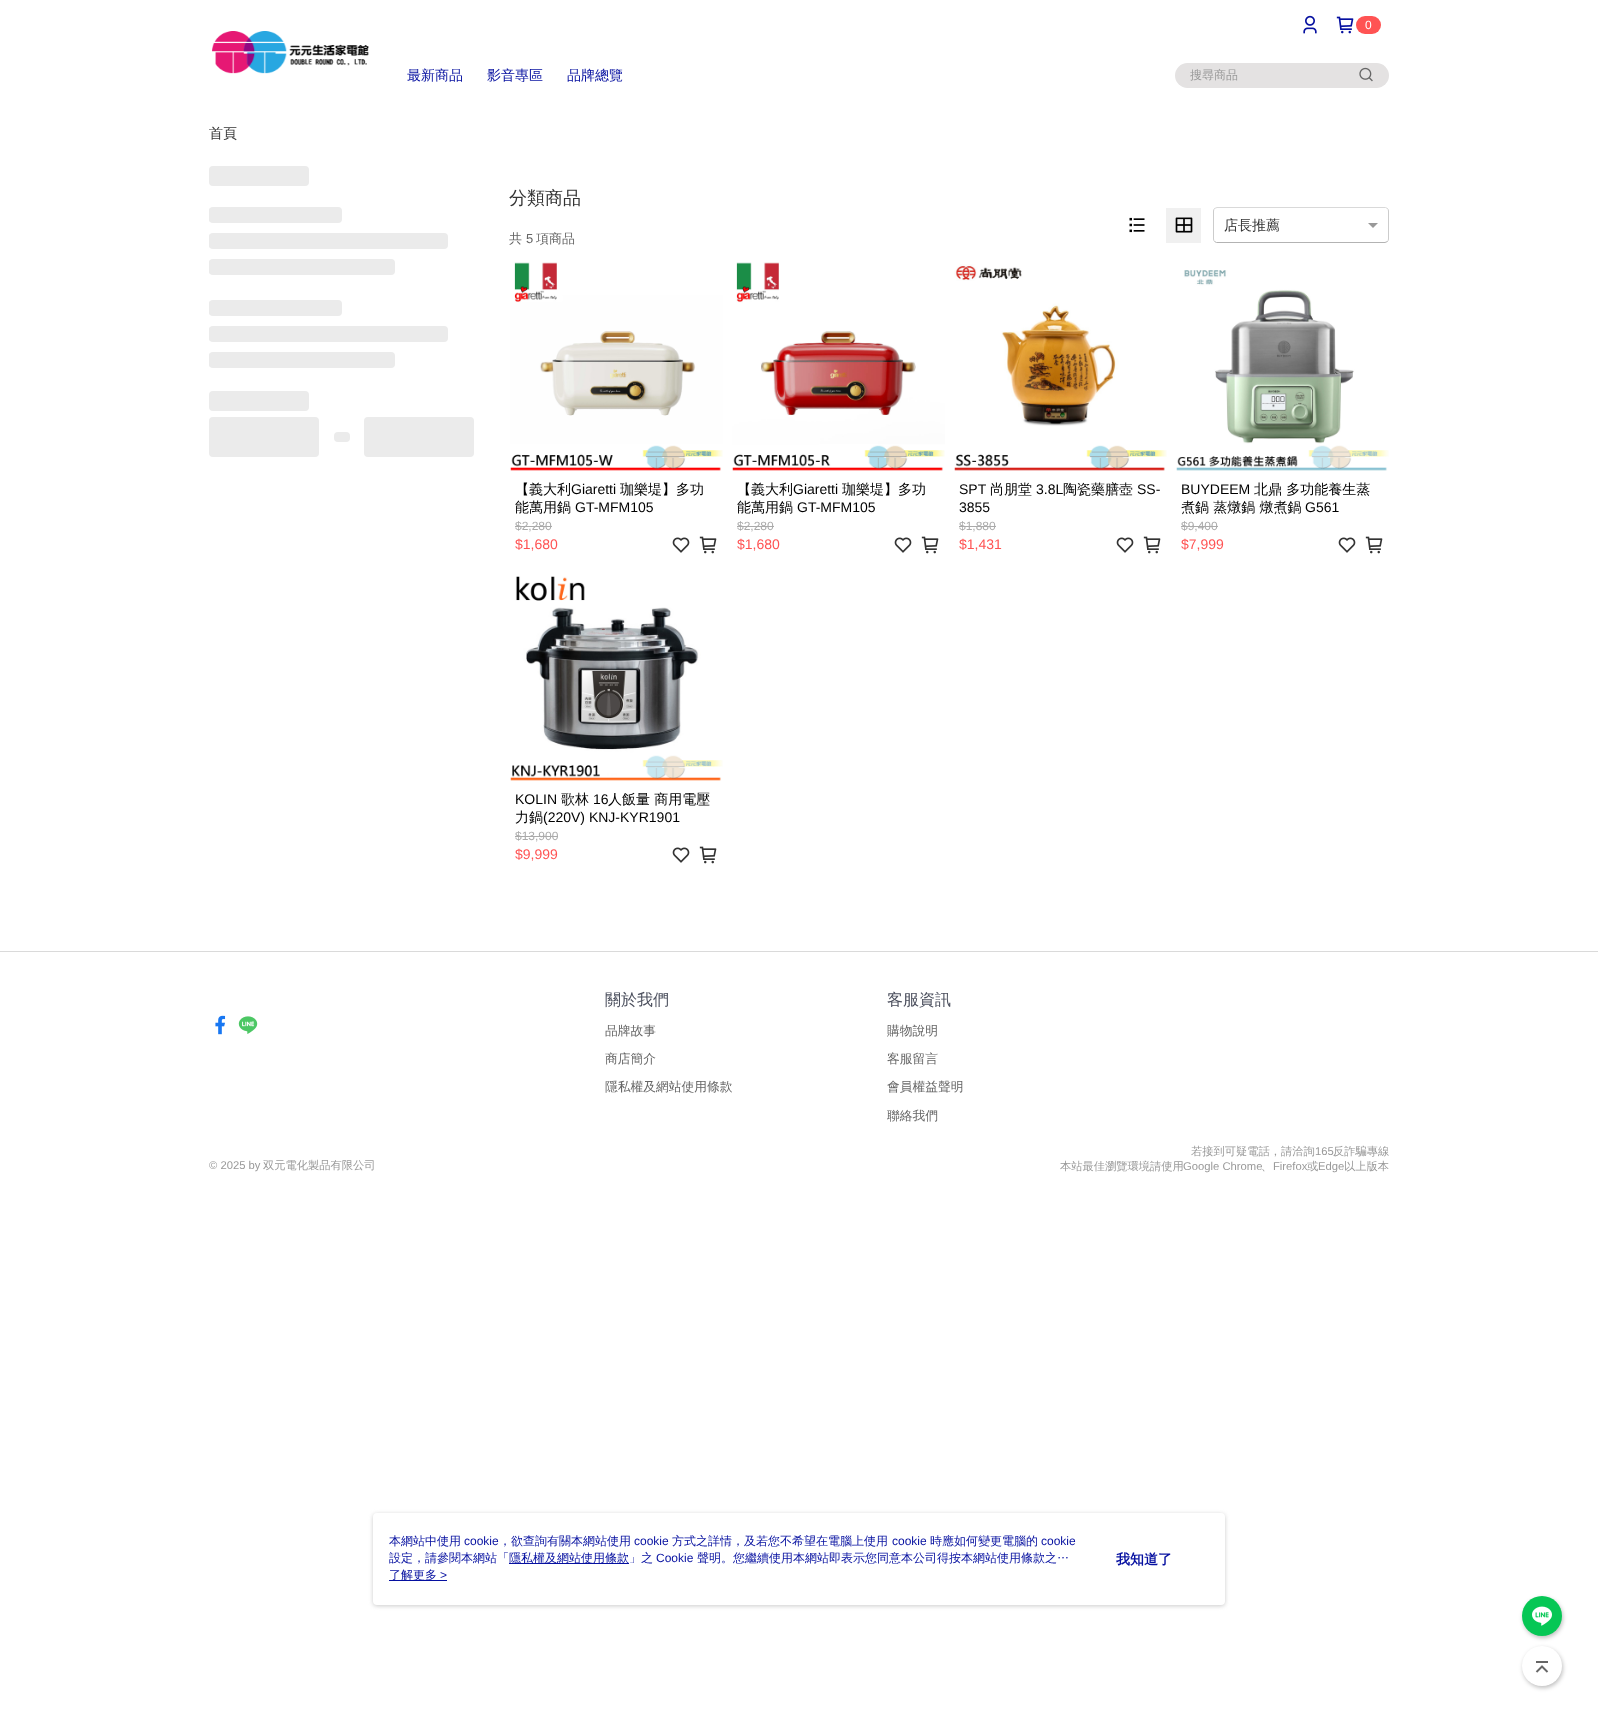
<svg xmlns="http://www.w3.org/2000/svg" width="1598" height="1732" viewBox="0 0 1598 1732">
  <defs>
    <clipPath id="clip1"><rect x="209" y="207" width="133" height="16" rx="4"/></clipPath>
    <linearGradient id="g1" gradientUnits="userSpaceOnUse" x1="77" y1="215" x2="210" y2="215"><stop offset="0" stop-color="rgb(235,235,235)"/><stop offset="0.5" stop-color="rgb(245,245,245)"/><stop offset="1" stop-color="rgb(235,235,235)"/></linearGradient>
    <clipPath id="clip2"><rect x="209" y="233" width="239" height="16" rx="4"/></clipPath>
    <linearGradient id="g2" gradientUnits="userSpaceOnUse" x1="-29" y1="241" x2="210" y2="241"><stop offset="0" stop-color="rgb(235,235,235)"/><stop offset="0.5" stop-color="rgb(245,245,245)"/><stop offset="1" stop-color="rgb(235,235,235)"/></linearGradient>
    <clipPath id="clip3"><rect x="209" y="259" width="186" height="16" rx="4"/></clipPath>
    <linearGradient id="g3" gradientUnits="userSpaceOnUse" x1="24" y1="267" x2="210" y2="267"><stop offset="0" stop-color="rgb(235,235,235)"/><stop offset="0.5" stop-color="rgb(245,245,245)"/><stop offset="1" stop-color="rgb(235,235,235)"/></linearGradient>
    <clipPath id="clip4"><rect x="209" y="300" width="133" height="16" rx="4"/></clipPath>
    <linearGradient id="g4" gradientUnits="userSpaceOnUse" x1="77" y1="308" x2="210" y2="308"><stop offset="0" stop-color="rgb(235,235,235)"/><stop offset="0.5" stop-color="rgb(245,245,245)"/><stop offset="1" stop-color="rgb(235,235,235)"/></linearGradient>
    <clipPath id="clip5"><rect x="209" y="326" width="239" height="16" rx="4"/></clipPath>
    <linearGradient id="g5" gradientUnits="userSpaceOnUse" x1="-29" y1="334" x2="210" y2="334"><stop offset="0" stop-color="rgb(235,235,235)"/><stop offset="0.5" stop-color="rgb(245,245,245)"/><stop offset="1" stop-color="rgb(235,235,235)"/></linearGradient>
    <clipPath id="clip6"><rect x="209" y="352" width="186" height="16" rx="4"/></clipPath>
    <linearGradient id="g6" gradientUnits="userSpaceOnUse" x1="24" y1="360" x2="210" y2="360"><stop offset="0" stop-color="rgb(235,235,235)"/><stop offset="0.5" stop-color="rgb(245,245,245)"/><stop offset="1" stop-color="rgb(235,235,235)"/></linearGradient>
  </defs>
  <rect width="100%" height="100%" fill="rgb(255,255,255)"/>
  <image x="212" y="31" width="157" height="43" href="pic1.png"/>
  <image x="1303" y="15" width="14" height="19" href="pic2.png"/>
  <image x="1336" y="16" width="18" height="18" href="pic3.png"/>
  <rect x="1356" y="16" width="25" height="18" rx="9" fill="rgb(255,83,83)"/>
  <text x="1365" y="29" font-family="Liberation Sans" font-size="12" fill="rgb(255,255,255)">0</text>
  <g font-family="WenQuanYi Zen Hei" font-size="14" font-weight="500" fill="rgb(6,16,160)">
    <text x="407" y="80">最新商品</text>
    <text x="487" y="80">影音專區</text>
    <text x="567" y="80">品牌總覽</text>
  </g>
  <rect x="1175" y="63" width="214" height="25" rx="12.5" fill="rgb(228,226,226)"/>
  <text x="1190" y="79" font-family="WenQuanYi Zen Hei" font-size="12" font-weight="500" fill="rgb(153,153,153)">搜尋商品</text>
  <image x="1359" y="67" width="14" height="15" href="pic4.png"/>
  <rect x="1523" y="1598" width="40" height="40" rx="20" fill="rgba(0,0,0,0.25)" filter="blur(2px)"/>
  <circle cx="1542" cy="1616" r="20" fill="rgb(6,199,85)"/>
  <image x="1532" y="1606" width="20" height="20" href="pic5.png"/>
  <rect x="1523" y="1648" width="40" height="40" rx="20" fill="rgba(0,0,0,0.25)" filter="blur(2px)"/>
  <circle cx="1542" cy="1666" r="20" fill="rgb(255,255,255)"/>
  <image x="1535" y="1661" width="14" height="12" href="pic6.png"/>
  <text x="209" y="138" font-family="WenQuanYi Zen Hei" font-size="14" font-weight="500" fill="rgb(51,51,51)">首頁</text>
  <rect x="209" y="166" width="100" height="20" rx="4" fill="rgb(235,235,235)"/>
  <rect x="209" y="207" width="133" height="16" rx="4" fill="rgb(235,235,235)"/>
  <g clip-path="url(#clip1)">
    <rect x="209" y="207" width="1" height="16" fill="url(#g1)"/>
  </g>
  <rect x="209" y="233" width="239" height="16" rx="4" fill="rgb(235,235,235)"/>
  <g clip-path="url(#clip2)">
    <rect x="209" y="233" width="1" height="16" fill="url(#g2)"/>
  </g>
  <rect x="209" y="259" width="186" height="16" rx="4" fill="rgb(235,235,235)"/>
  <g clip-path="url(#clip3)">
    <rect x="209" y="259" width="1" height="16" fill="url(#g3)"/>
  </g>
  <rect x="209" y="300" width="133" height="16" rx="4" fill="rgb(235,235,235)"/>
  <g clip-path="url(#clip4)">
    <rect x="209" y="300" width="1" height="16" fill="url(#g4)"/>
  </g>
  <rect x="209" y="326" width="239" height="16" rx="4" fill="rgb(235,235,235)"/>
  <g clip-path="url(#clip5)">
    <rect x="209" y="326" width="1" height="16" fill="url(#g5)"/>
  </g>
  <rect x="209" y="352" width="186" height="16" rx="4" fill="rgb(235,235,235)"/>
  <g clip-path="url(#clip6)">
    <rect x="209" y="352" width="1" height="16" fill="url(#g6)"/>
  </g>
  <rect x="209" y="391" width="100" height="20" rx="4" fill="rgb(235,235,235)"/>
  <rect x="209" y="417" width="110" height="40" rx="4" fill="rgb(235,235,235)"/>
  <rect x="334" y="432" width="16" height="10" rx="4" fill="rgb(235,235,235)"/>
  <rect x="364" y="417" width="110" height="40" rx="4" fill="rgb(235,235,235)"/>
  <text x="509" y="204" font-family="WenQuanYi Zen Hei" font-size="18" font-weight="500" fill="rgb(51,51,51)">分類商品</text>
  <image x="1129" y="217" width="16" height="16" href="pic7.png"/>
  <rect x="1166" y="208" width="35" height="35" fill="rgb(240,240,240)"/>
  <image x="1175" y="217" width="18" height="16" href="pic8.png"/>
  <path d="M1214.5 208.5L1217 207.5H1385.5L1387.5 208.5" fill="none" stroke="rgb(217,217,217)"/>
  <path d="M1387.5 208.5C1388 209 1388.5 210 1388.5 211V239C1388.5 240 1388 241 1387.5 241.5" fill="none" stroke="rgb(204,204,204)"/>
  <path d="M1387.5 241.5L1385 242.5H1216.5L1214.5 241.5" fill="none" stroke="rgb(179,179,179)"/>
  <path d="M1214.5 241.5C1214 241 1213.5 240 1213.5 239V211C1213.5 210 1214 209 1214.5 208.5" fill="none" stroke="rgb(204,204,204)"/>
  <text x="1224" y="230" font-family="WenQuanYi Zen Hei" font-size="14" font-weight="500" fill="rgb(51,51,51)">店長推薦</text>
  <path d="M1368 223H1378L1373 228Z" fill="rgb(153,153,153)"/>
  <text x="509" y="243" font-family="WenQuanYi Zen Hei" font-size="13" font-weight="500" fill="rgb(102,102,102)">共</text>
  <text x="526" y="243" font-family="Liberation Sans" font-size="13" fill="rgb(102,102,102)">5</text>
  <text x="536" y="243" font-family="WenQuanYi Zen Hei" font-size="13" font-weight="500" fill="rgb(102,102,102)">項商品</text>
  <image x="510" y="262" width="213" height="209" href="pic9.png"/>
  <text x="515" y="494" font-family="WenQuanYi Zen Hei" font-size="14" font-weight="500" fill="rgb(0,0,0)">【義大利</text>
  <text x="571" y="494" font-family="Liberation Sans" font-size="14" fill="rgb(0,0,0)">Giaretti</text>
  <g font-family="WenQuanYi Zen Hei" font-size="14" font-weight="500" fill="rgb(0,0,0)">
    <text x="620" y="494">珈樂堤】多功</text>
    <text x="515" y="512">能萬用鍋</text>
  </g>
  <text x="575" y="512" font-family="Liberation Sans" font-size="14" fill="rgb(0,0,0)">GT-MFM105</text>
  <text x="515" y="530" font-family="Liberation Sans" font-size="12" fill="rgb(170,170,170)">$2,280</text>
  <rect x="515" y="526" width="37" height="1" fill="rgb(170,170,170)"/>
  <text x="515" y="549" font-family="Liberation Sans" font-size="14" fill="rgb(255,83,83)">$1,680</text>
  <image x="672" y="537" width="18" height="16" href="pic10.png"/>
  <image x="699" y="536" width="18" height="18" href="pic11.png"/>
  <image x="732" y="262" width="213" height="209" href="pic12.png"/>
  <text x="737" y="494" font-family="WenQuanYi Zen Hei" font-size="14" font-weight="500" fill="rgb(0,0,0)">【義大利</text>
  <text x="793" y="494" font-family="Liberation Sans" font-size="14" fill="rgb(0,0,0)">Giaretti</text>
  <g font-family="WenQuanYi Zen Hei" font-size="14" font-weight="500" fill="rgb(0,0,0)">
    <text x="842" y="494">珈樂堤】多功</text>
    <text x="737" y="512">能萬用鍋</text>
  </g>
  <text x="797" y="512" font-family="Liberation Sans" font-size="14" fill="rgb(0,0,0)">GT-MFM105</text>
  <text x="737" y="530" font-family="Liberation Sans" font-size="12" fill="rgb(170,170,170)">$2,280</text>
  <rect x="737" y="526" width="37" height="1" fill="rgb(170,170,170)"/>
  <text x="737" y="549" font-family="Liberation Sans" font-size="14" fill="rgb(255,83,83)">$1,680</text>
  <image x="894" y="537" width="18" height="16" href="pic10.png"/>
  <image x="921" y="536" width="18" height="18" href="pic11.png"/>
  <image x="954" y="264" width="213" height="207" href="pic13.png"/>
  <text x="959" y="494" font-family="Liberation Sans" font-size="14" fill="rgb(0,0,0)">SPT</text>
  <text x="990" y="494" font-family="WenQuanYi Zen Hei" font-size="14" font-weight="500" fill="rgb(0,0,0)">尚朋堂</text>
  <text x="1036" y="494" font-family="Liberation Sans" font-size="14" fill="rgb(0,0,0)">3.8L</text>
  <text x="1063" y="494" font-family="WenQuanYi Zen Hei" font-size="14" font-weight="500" fill="rgb(0,0,0)">陶瓷藥膳壺</text>
  <g font-family="Liberation Sans" font-size="14" fill="rgb(0,0,0)">
    <text x="1137" y="494">SS-</text>
    <text x="959" y="512">3855</text>
  </g>
  <text x="959" y="530" font-family="Liberation Sans" font-size="12" fill="rgb(170,170,170)">$1,880</text>
  <rect x="959" y="526" width="37" height="1" fill="rgb(170,170,170)"/>
  <text x="959" y="549" font-family="Liberation Sans" font-size="14" fill="rgb(255,83,83)">$1,431</text>
  <image x="1116" y="537" width="18" height="16" href="pic10.png"/>
  <image x="1143" y="536" width="18" height="18" href="pic11.png"/>
  <image x="1176" y="270" width="213" height="201" href="pic14.png"/>
  <text x="1181" y="494" font-family="Liberation Sans" font-size="14" fill="rgb(0,0,0)">BUYDEEM</text>
  <g font-family="WenQuanYi Zen Hei" font-size="14" font-weight="500" fill="rgb(0,0,0)">
    <text x="1254" y="494">北鼎 多功能養生蒸</text>
    <text x="1181" y="512">煮鍋 蒸燉鍋 燉煮鍋</text>
  </g>
  <text x="1305" y="512" font-family="Liberation Sans" font-size="14" fill="rgb(0,0,0)">G561</text>
  <text x="1181" y="530" font-family="Liberation Sans" font-size="12" fill="rgb(170,170,170)">$9,400</text>
  <rect x="1181" y="526" width="37" height="1" fill="rgb(170,170,170)"/>
  <text x="1181" y="549" font-family="Liberation Sans" font-size="14" fill="rgb(255,83,83)">$7,999</text>
  <image x="1338" y="537" width="18" height="16" href="pic10.png"/>
  <image x="1365" y="536" width="18" height="18" href="pic11.png"/>
  <image x="510" y="576" width="213" height="205" href="pic15.png"/>
  <text x="515" y="804" font-family="Liberation Sans" font-size="14" fill="rgb(0,0,0)">KOLIN</text>
  <text x="561" y="804" font-family="WenQuanYi Zen Hei" font-size="14" font-weight="500" fill="rgb(0,0,0)">歌林</text>
  <text x="593" y="804" font-family="Liberation Sans" font-size="14" fill="rgb(0,0,0)">16</text>
  <g font-family="WenQuanYi Zen Hei" font-size="14" font-weight="500" fill="rgb(0,0,0)">
    <text x="608" y="804">人飯量 商用電壓</text>
    <text x="515" y="822">力鍋</text>
  </g>
  <text x="543" y="822" font-family="Liberation Sans" font-size="14" fill="rgb(0,0,0)">(220V) KNJ-KYR1901</text>
  <text x="515" y="840" font-family="Liberation Sans" font-size="12" fill="rgb(170,170,170)">$13,900</text>
  <rect x="515" y="836" width="43" height="1" fill="rgb(170,170,170)"/>
  <text x="515" y="859" font-family="Liberation Sans" font-size="14" fill="rgb(255,83,83)">$9,999</text>
  <image x="672" y="847" width="18" height="16" href="pic10.png"/>
  <image x="699" y="846" width="18" height="18" href="pic11.png"/>
  <rect x="0" y="951" width="1598" height="1" fill="rgb(218,218,218)"/>
  <image x="215" y="1015" width="11" height="20" href="pic16.png"/>
  <image x="238" y="1016" width="20" height="18" href="pic17.png"/>
  <text x="605" y="1005" font-family="WenQuanYi Zen Hei" font-size="16" font-weight="500" fill="rgb(74,78,92)">關於我們</text>
  <g font-family="WenQuanYi Zen Hei" font-size="12.75" font-weight="500" fill="rgb(102,102,102)">
    <text x="605" y="1035">品牌故事</text>
    <text x="605" y="1063">商店簡介</text>
    <text x="605" y="1091">隱私權及網站使用條款</text>
  </g>
  <text x="887" y="1005" font-family="WenQuanYi Zen Hei" font-size="16" font-weight="500" fill="rgb(74,78,92)">客服資訊</text>
  <g font-family="WenQuanYi Zen Hei" font-size="12.75" font-weight="500" fill="rgb(102,102,102)">
    <text x="887" y="1035">購物說明</text>
    <text x="887" y="1063">客服留言</text>
    <text x="887" y="1091">會員權益聲明</text>
    <text x="887" y="1120">聯絡我們</text>
  </g>
  <text x="1191" y="1155" font-family="WenQuanYi Zen Hei" font-size="11.25" font-weight="500" fill="rgb(153,153,153)">若接到可疑電話，請洽詢</text>
  <text x="1315" y="1155" font-family="Liberation Sans" font-size="11.25" fill="rgb(153,153,153)">165</text>
  <text x="1333" y="1155" font-family="WenQuanYi Zen Hei" font-size="11.25" font-weight="500" fill="rgb(153,153,153)">反詐騙專線</text>
  <text x="209" y="1169" font-family="Liberation Sans" font-size="11.25" fill="rgb(153,153,153)">© 2025 by</text>
  <g font-family="WenQuanYi Zen Hei" font-size="11.25" font-weight="500" fill="rgb(153,153,153)">
    <text x="263" y="1169">双元電化製品有限公司</text>
    <text x="1060" y="1170">本站最佳瀏覽環境請使用</text>
  </g>
  <text x="1183" y="1170" font-family="Liberation Sans" font-size="11.25" fill="rgb(153,153,153)">Google Chrome</text>
  <text x="1261" y="1170" font-family="WenQuanYi Zen Hei" font-size="11.25" font-weight="500" fill="rgb(153,153,153)">、</text>
  <text x="1273" y="1170" font-family="Liberation Sans" font-size="11.25" fill="rgb(153,153,153)">Firefox</text>
  <text x="1307" y="1170" font-family="WenQuanYi Zen Hei" font-size="11.25" font-weight="500" fill="rgb(153,153,153)">或</text>
  <text x="1318" y="1170" font-family="Liberation Sans" font-size="11.25" fill="rgb(153,153,153)">Edge</text>
  <text x="1344" y="1170" font-family="WenQuanYi Zen Hei" font-size="11.25" font-weight="500" fill="rgb(153,153,153)">以上版本</text>
  <rect x="373" y="1514" width="852" height="92" rx="4" fill="rgba(151,151,151,0.5)" filter="blur(2px)"/>
  <rect x="373" y="1513" width="852" height="92" rx="4" fill="rgb(255,255,255)"/>
  <text x="389" y="1545" font-family="WenQuanYi Zen Hei" font-size="12" font-weight="500" fill="rgb(6,16,160)">本網站中使用</text>
  <text x="464" y="1545" font-family="Liberation Sans" font-size="12" fill="rgb(6,16,160)">cookie</text>
  <text x="499" y="1545" font-family="WenQuanYi Zen Hei" font-size="12" font-weight="500" fill="rgb(6,16,160)">，欲查詢有關本網站使用</text>
  <text x="634" y="1545" font-family="Liberation Sans" font-size="12" fill="rgb(6,16,160)">cookie</text>
  <text x="672" y="1545" font-family="WenQuanYi Zen Hei" font-size="12" font-weight="500" fill="rgb(6,16,160)">方式之詳情，及若您不希望在電腦上使用</text>
  <text x="892" y="1545" font-family="Liberation Sans" font-size="12" fill="rgb(6,16,160)">cookie</text>
  <text x="930" y="1545" font-family="WenQuanYi Zen Hei" font-size="12" font-weight="500" fill="rgb(6,16,160)">時應如何變更電腦的</text>
  <text x="1041" y="1545" font-family="Liberation Sans" font-size="12" fill="rgb(6,16,160)">cookie</text>
  <text x="389" y="1562" font-family="WenQuanYi Zen Hei" font-size="12" font-weight="500" fill="rgb(6,16,160)">設定，請參閱本網站「</text>
  <rect x="509" y="1563" width="120" height="1" fill="rgb(6,16,160)"/>
  <text x="509" y="1562" font-family="WenQuanYi Zen Hei" font-size="12" font-weight="500" fill="rgb(6,16,160)">隱私權及網站使用條款」之</text>
  <text x="656" y="1562" font-family="Liberation Sans" font-size="12" fill="rgb(6,16,160)">Cookie</text>
  <text x="697" y="1562" font-family="WenQuanYi Zen Hei" font-size="12" font-weight="500" fill="rgb(6,16,160)">聲明。您繼續使用本網站即表示您同意本公司得按本網站使用條款之…</text>
  <rect x="389" y="1580" width="58" height="1" fill="rgb(6,16,160)"/>
  <text x="389" y="1579" font-family="WenQuanYi Zen Hei" font-size="12" font-weight="500" fill="rgb(6,16,160)">了解更多</text>
  <text x="440" y="1579" font-family="Liberation Sans" font-size="12" fill="rgb(6,16,160)">&gt;</text>
  <text x="1116" y="1564" font-family="WenQuanYi Zen Hei" font-size="14" font-weight="bold" fill="rgb(6,16,160)">我知道了</text>
</svg>
